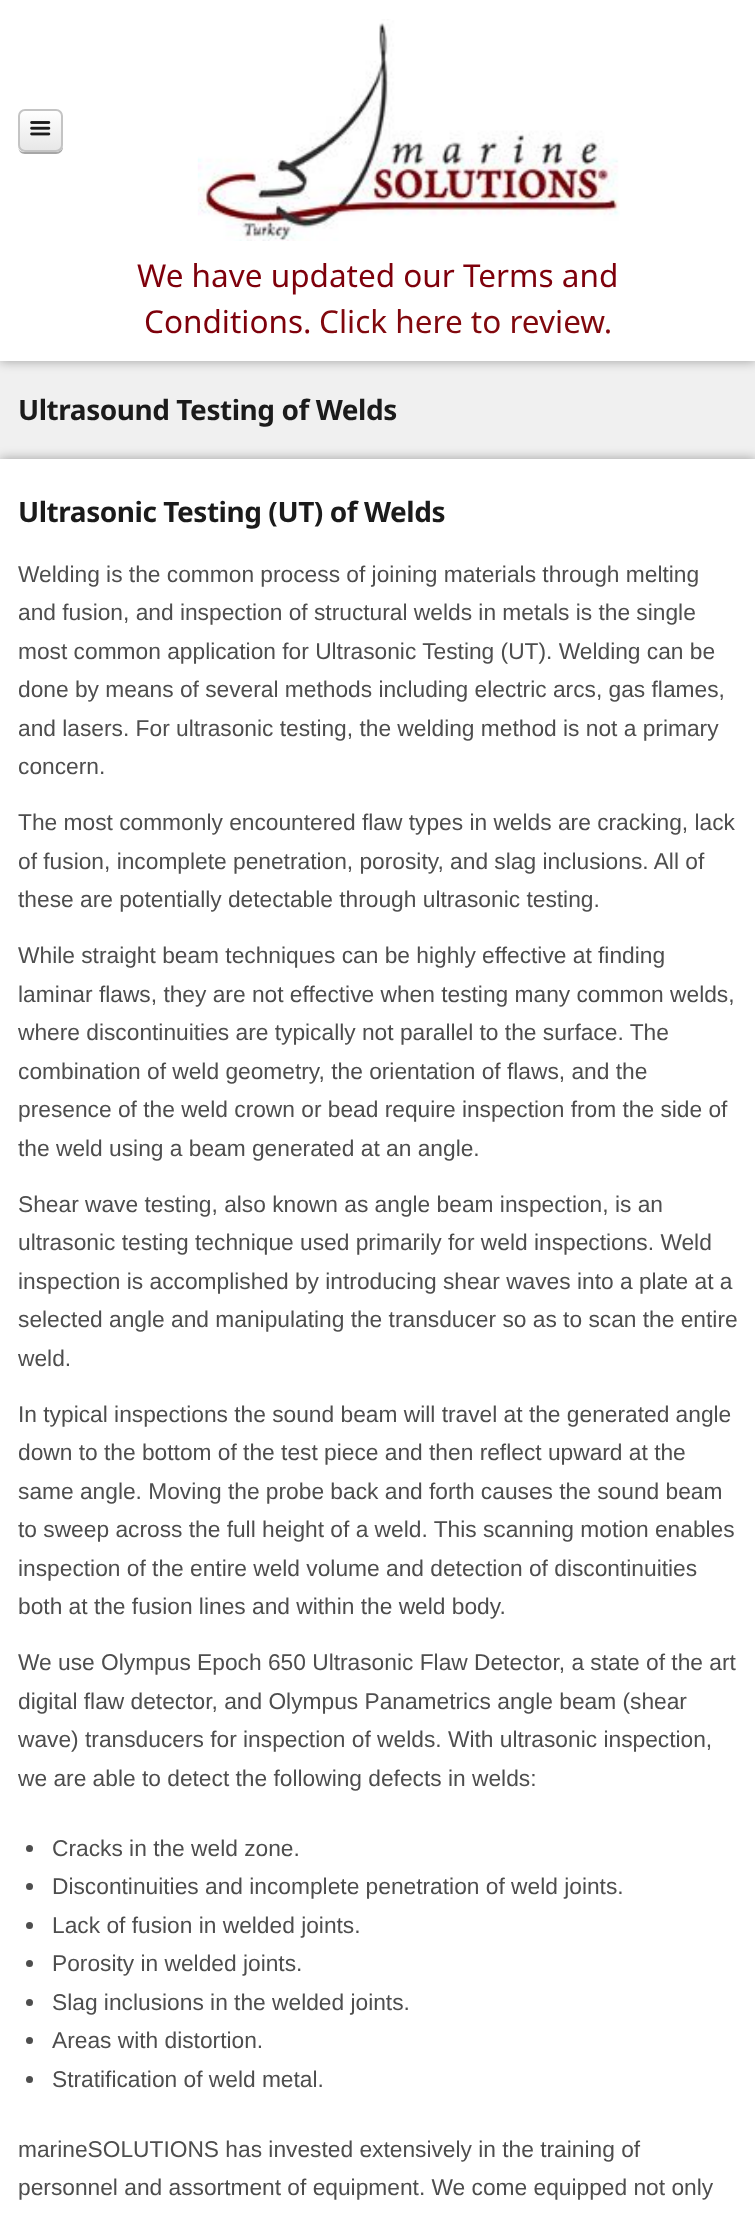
<svg xmlns="http://www.w3.org/2000/svg" width="755" height="2215" viewBox="0 0 755 2215">
  <defs>
    <clipPath id="clip1"><path d="M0 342H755V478H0ZM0 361H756V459H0Z" clip-rule="evenodd"/></clipPath>
    <clipPath id="clip2"><rect x="18" y="109" width="45" height="43" rx="7"/></clipPath>
    <linearGradient id="g1" gradientUnits="userSpaceOnUse" x1="40" y1="110" x2="40" y2="151"><stop offset="0" stop-color="rgb(255,255,255)"/><stop offset="1" stop-color="rgb(231,231,231)"/></linearGradient>
  </defs>
  <rect width="100%" height="100%" fill="rgb(240,240,240)"/>
  <rect x="0" y="-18" width="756" height="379" fill="rgba(0,0,0,0.35)" filter="blur(6px)"/>
  <g clip-path="url(#clip1)">
    <rect x="0" y="361" width="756" height="98" fill="rgba(0,0,0,0.35)" filter="blur(6px)"/>
  </g>
  <rect x="0" y="0" width="755" height="361" fill="rgb(255,255,255)"/>
  <path d="M18 148C19 151 21 154 25 154H56C60 154 63 151 63 147V145C63 149 60 152 56 152H24C22 152 19 151 18 148Z" fill="rgb(166,166,166)"/>
  <g clip-path="url(#clip2)">
    <rect x="18" y="110" width="45" height="41" fill="url(#g1)"/>
  </g>
  <rect x="19" y="110" width="43" height="41" rx="6" fill="none" stroke="rgb(196,196,196)" stroke-width="2"/>
  <image x="30" y="121" width="21" height="15" href="pic1.png"/>
  <image x="197" y="19" width="423" height="222" href="pic2.png"/>
  <g font-family="Noto Sans" font-size="31.5" fill="rgb(126,0,11)">
    <text x="137" y="287">We have updated our Terms and</text>
    <text x="144" y="333">Conditions.</text>
  </g>
  <text x="319" y="333" font-family="Noto Sans" font-size="31.5" fill="rgb(129,8,13)">Click here to review.</text>
  <rect x="0" y="458" width="755" height="1" fill="rgba(240,240,240,0.6)"/>
  <text x="18" y="420" font-family="Noto Sans" font-size="28" font-weight="bold" letter-spacing="-0.45" fill="rgb(27,27,27)">Ultrasound Testing of Welds</text>
  <rect x="0" y="459" width="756" height="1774" fill="rgba(0,0,0,0.35)" filter="blur(6px)"/>
  <rect x="0" y="459" width="755" height="1756" fill="rgb(255,255,255)"/>
  <text x="18" y="522" font-family="Noto Sans" font-size="28" font-weight="bold" letter-spacing="-0.45" fill="rgb(27,27,27)">Ultrasonic Testing (UT) of Welds</text>
  <g font-family="Liberation Sans" font-size="22.75" fill="rgb(78,78,78)">
    <text>
      <tspan x="18" y="582">Welding is the common process of joining materials through melting</tspan>
      <tspan x="18" y="620">and fusion, and inspection of structural welds in metals is the single</tspan>
      <tspan x="18" y="659">most common application for Ultrasonic Testing (UT). Welding can be</tspan>
      <tspan x="18" y="697">done by means of several methods including electric arcs, gas flames,</tspan>
      <tspan x="18" y="736">and lasers. For ultrasonic testing, the welding method is not a primary</tspan>
      <tspan x="18" y="774">concern.</tspan>
    </text>
    <text>
      <tspan x="18" y="830">The most commonly encountered flaw types in welds are cracking, lack</tspan>
      <tspan x="18" y="869">of fusion, incomplete penetration, porosity, and slag inclusions. All of</tspan>
      <tspan x="18" y="907">these are potentially detectable through ultrasonic testing.</tspan>
    </text>
    <text>
      <tspan x="18" y="963">While straight beam techniques can be highly effective at finding</tspan>
      <tspan x="18" y="1002">laminar flaws, they are not effective when testing many common welds,</tspan>
      <tspan x="18" y="1040">where discontinuities are typically not parallel to the surface. The</tspan>
      <tspan x="18" y="1079">combination of weld geometry, the orientation of flaws, and the</tspan>
      <tspan x="18" y="1117">presence of the weld crown or bead require inspection from the side of</tspan>
      <tspan x="18" y="1156">the weld using a beam generated at an angle.</tspan>
    </text>
    <text>
      <tspan x="18" y="1212">Shear wave testing, also known as angle beam inspection, is an</tspan>
      <tspan x="18" y="1250">ultrasonic testing technique used primarily for weld inspections. Weld</tspan>
      <tspan x="18" y="1289">inspection is accomplished by introducing shear waves into a plate at a</tspan>
      <tspan x="18" y="1327">selected angle and manipulating the transducer so as to scan the entire</tspan>
      <tspan x="18" y="1366">weld.</tspan>
    </text>
    <text>
      <tspan x="18" y="1422">In typical inspections the sound beam will travel at the generated angle</tspan>
      <tspan x="18" y="1460">down to the bottom of the test piece and then reflect upward at the</tspan>
      <tspan x="18" y="1499">same angle. Moving the probe back and forth causes the sound beam</tspan>
      <tspan x="18" y="1537">to sweep across the full height of a weld. This scanning motion enables</tspan>
      <tspan x="18" y="1576">inspection of the entire weld volume and detection of discontinuities</tspan>
      <tspan x="18" y="1614">both at the fusion lines and within the weld body.</tspan>
    </text>
    <text>
      <tspan x="18" y="1670">We use Olympus Epoch 650 Ultrasonic Flaw Detector, a state of the art</tspan>
      <tspan x="18" y="1709">digital flaw detector, and Olympus Panametrics angle beam (shear</tspan>
      <tspan x="18" y="1747">wave) transducers for inspection of welds. With ultrasonic inspection,</tspan>
      <tspan x="18" y="1786">we are able to detect the following defects in welds:</tspan>
    </text>
  </g>
  <circle cx="29.5" cy="1848.5" r="3.5" fill="rgb(78,78,78)"/>
  <text x="52" y="1856" font-family="Liberation Sans" font-size="22.75" fill="rgb(78,78,78)">Cracks in the weld zone.</text>
  <circle cx="29.5" cy="1886.5" r="3.5" fill="rgb(78,78,78)"/>
  <text x="52" y="1894" font-family="Liberation Sans" font-size="22.75" fill="rgb(78,78,78)">Discontinuities and incomplete penetration of weld joints.</text>
  <circle cx="29.5" cy="1925.5" r="3.5" fill="rgb(78,78,78)"/>
  <text x="52" y="1933" font-family="Liberation Sans" font-size="22.75" fill="rgb(78,78,78)">Lack of fusion in welded joints.</text>
  <circle cx="29.5" cy="1963.5" r="3.5" fill="rgb(78,78,78)"/>
  <text x="52" y="1971" font-family="Liberation Sans" font-size="22.75" fill="rgb(78,78,78)">Porosity in welded joints.</text>
  <circle cx="29.5" cy="2002.5" r="3.5" fill="rgb(78,78,78)"/>
  <text x="52" y="2010" font-family="Liberation Sans" font-size="22.75" fill="rgb(78,78,78)">Slag inclusions in the welded joints.</text>
  <circle cx="29.5" cy="2040.5" r="3.5" fill="rgb(78,78,78)"/>
  <text x="52" y="2048" font-family="Liberation Sans" font-size="22.75" fill="rgb(78,78,78)">Areas with distortion.</text>
  <circle cx="29.5" cy="2079.5" r="3.5" fill="rgb(78,78,78)"/>
  <g font-family="Liberation Sans" font-size="22.75" fill="rgb(78,78,78)">
    <text x="52" y="2087">Stratification of weld metal.</text>
    <text>
      <tspan x="18" y="2157">marineSOLUTIONS has invested extensively in the training of</tspan>
      <tspan x="18" y="2195">personnel and assortment of equipment. We come equipped not only</tspan>
    </text>
  </g>
</svg>
